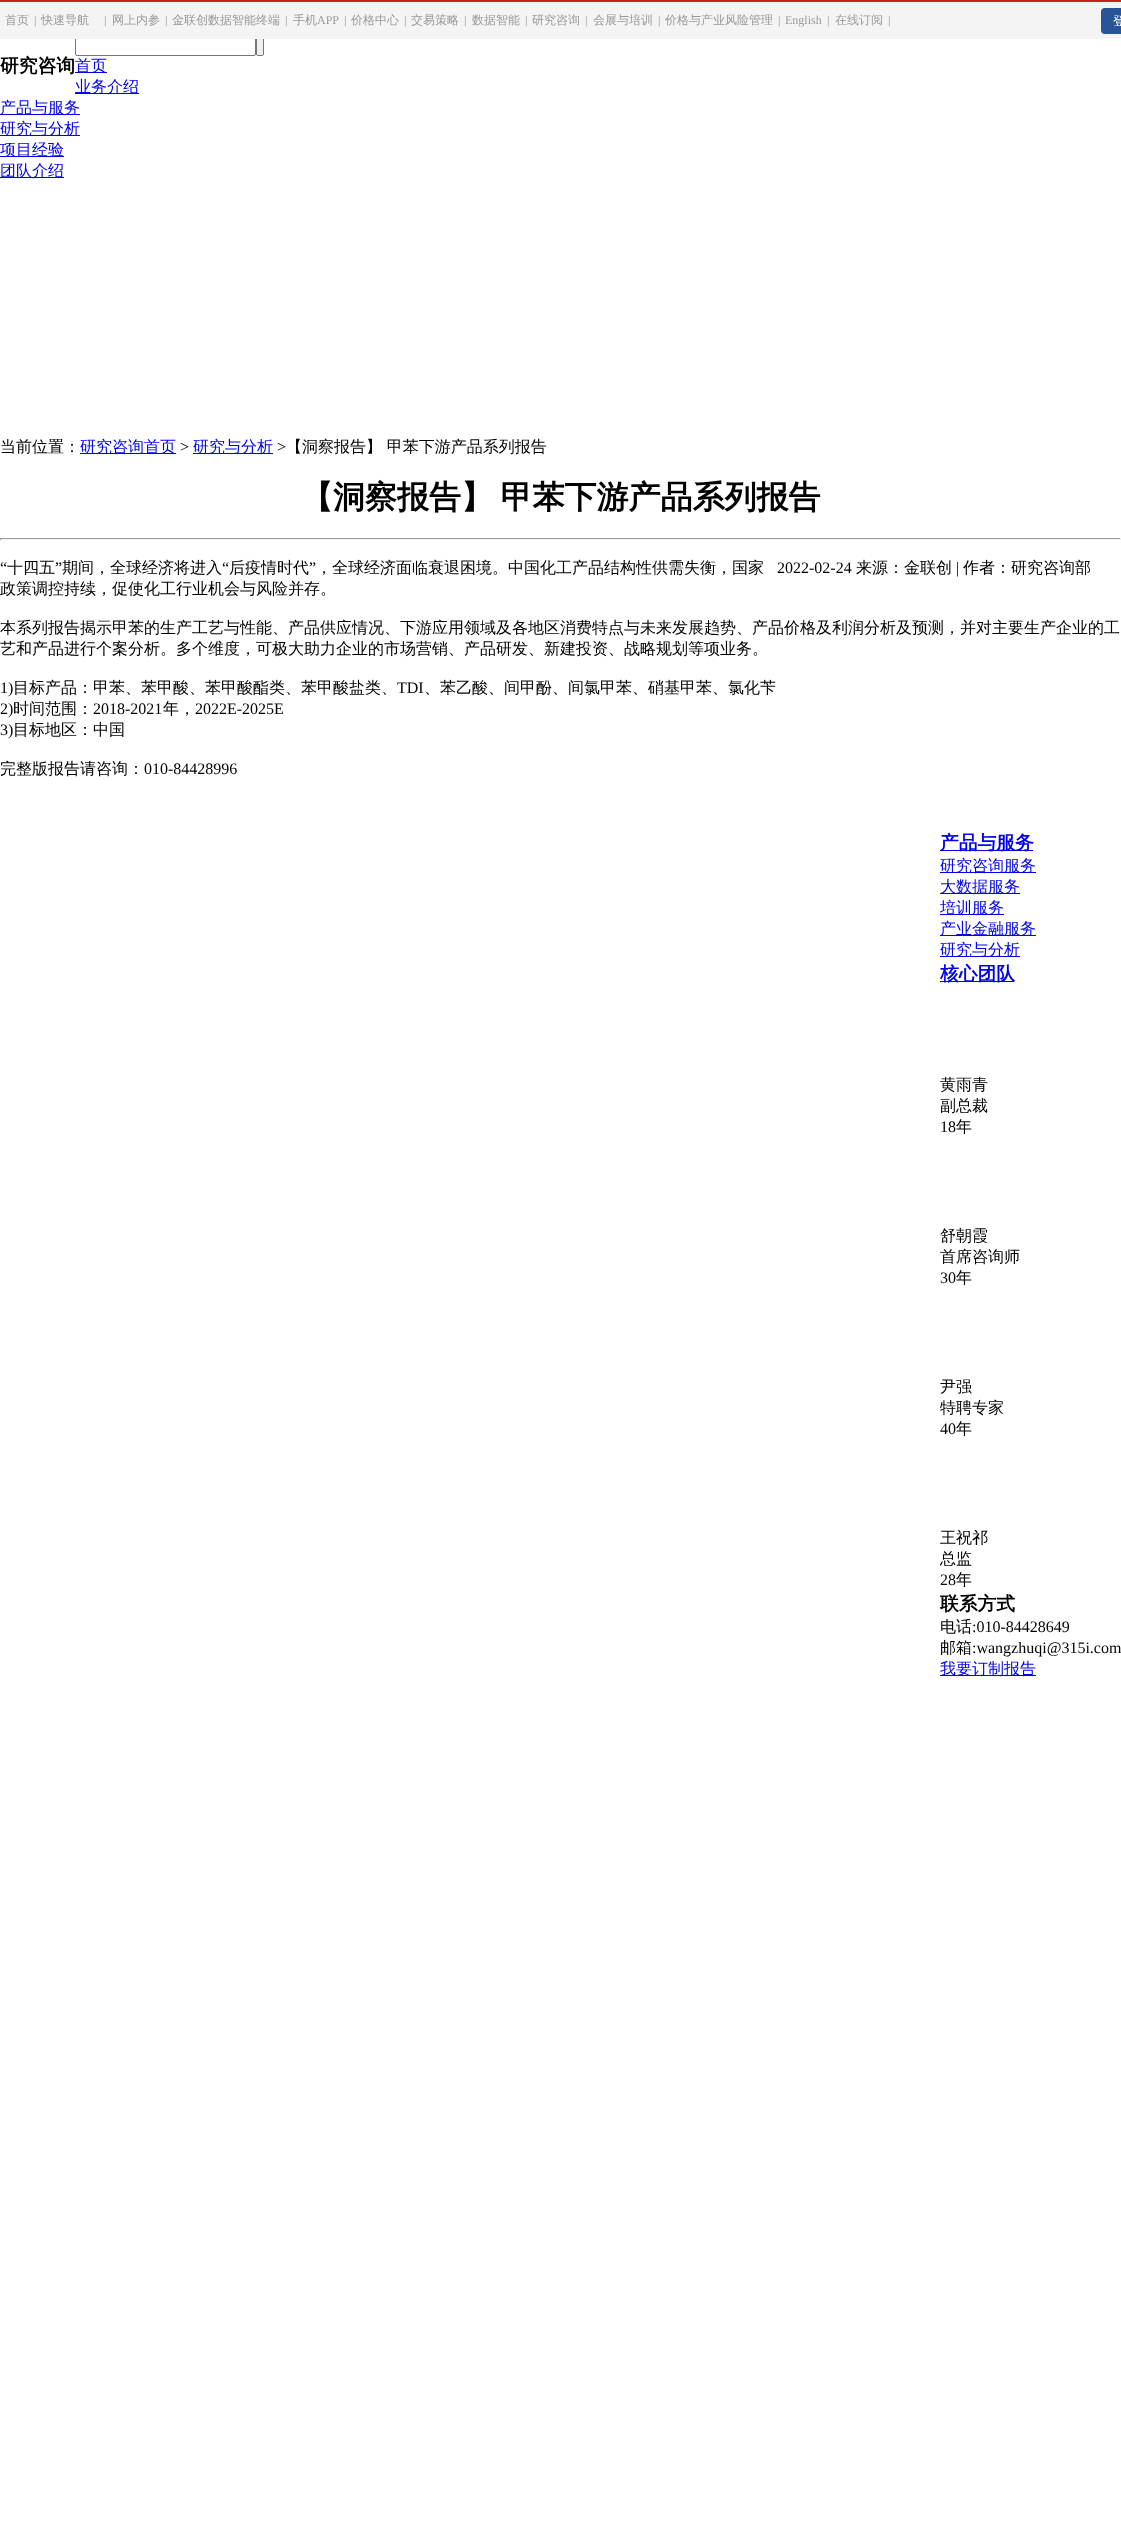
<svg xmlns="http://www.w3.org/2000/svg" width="1121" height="2526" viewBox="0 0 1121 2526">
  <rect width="100%" height="100%" fill="rgb(255,255,255)"/>
  <rect x="75.5" y="37.5" width="180" height="18" rx="1.5" fill="none" stroke="rgb(118,118,118)"/>
  <rect x="256.5" y="37.5" width="7" height="18" rx="1.5" fill="rgb(239,239,239)" stroke="rgb(118,118,118)"/>
  <rect x="0" y="2" width="1121" height="37" fill="rgb(244,244,244)"/>
  <rect x="0" y="0" width="1121" height="2" fill="rgb(197,33,34)"/>
  <text x="5" y="24" font-family="WenQuanYi Zen Hei" font-size="12" font-weight="500" fill="rgb(153,153,153)">首页</text>
  <text x="34" y="24" font-family="Liberation Serif" font-size="12" fill="rgb(153,153,153)">|</text>
  <text x="41" y="24" font-family="WenQuanYi Zen Hei" font-size="12" font-weight="500" fill="rgb(153,153,153)">快速导航</text>
  <text x="104" y="24" font-family="Liberation Serif" font-size="12" fill="rgb(153,153,153)">|</text>
  <text x="112" y="24" font-family="WenQuanYi Zen Hei" font-size="12" font-weight="500" fill="rgb(153,153,153)">网上内参</text>
  <text x="165" y="24" font-family="Liberation Serif" font-size="12" fill="rgb(153,153,153)">|</text>
  <text x="172" y="24" font-family="WenQuanYi Zen Hei" font-size="12" font-weight="500" fill="rgb(153,153,153)">金联创数据智能终端</text>
  <text x="285" y="24" font-family="Liberation Serif" font-size="12" fill="rgb(153,153,153)">|</text>
  <text x="293" y="24" font-family="WenQuanYi Zen Hei" font-size="12" font-weight="500" fill="rgb(153,153,153)">手机</text>
  <g font-family="Liberation Serif" font-size="12" fill="rgb(153,153,153)">
    <text x="317" y="24">APP</text>
    <text x="344" y="24">|</text>
  </g>
  <text x="351" y="24" font-family="WenQuanYi Zen Hei" font-size="12" font-weight="500" fill="rgb(153,153,153)">价格中心</text>
  <text x="404" y="24" font-family="Liberation Serif" font-size="12" fill="rgb(153,153,153)">|</text>
  <text x="411" y="24" font-family="WenQuanYi Zen Hei" font-size="12" font-weight="500" fill="rgb(153,153,153)">交易策略</text>
  <text x="464" y="24" font-family="Liberation Serif" font-size="12" fill="rgb(153,153,153)">|</text>
  <text x="472" y="24" font-family="WenQuanYi Zen Hei" font-size="12" font-weight="500" fill="rgb(153,153,153)">数据智能</text>
  <text x="525" y="24" font-family="Liberation Serif" font-size="12" fill="rgb(153,153,153)">|</text>
  <text x="532" y="24" font-family="WenQuanYi Zen Hei" font-size="12" font-weight="500" fill="rgb(153,153,153)">研究咨询</text>
  <text x="585" y="24" font-family="Liberation Serif" font-size="12" fill="rgb(153,153,153)">|</text>
  <text x="593" y="24" font-family="WenQuanYi Zen Hei" font-size="12" font-weight="500" fill="rgb(153,153,153)">会展与培训</text>
  <text x="658" y="24" font-family="Liberation Serif" font-size="12" fill="rgb(153,153,153)">|</text>
  <text x="665" y="24" font-family="WenQuanYi Zen Hei" font-size="12" font-weight="500" fill="rgb(153,153,153)">价格与产业风险管理</text>
  <g font-family="Liberation Serif" font-size="12" fill="rgb(153,153,153)">
    <text x="778" y="24">|</text>
    <text x="785" y="24">English</text>
    <text x="827" y="24">|</text>
  </g>
  <text x="835" y="24" font-family="WenQuanYi Zen Hei" font-size="12" font-weight="500" fill="rgb(153,153,153)">在线订阅</text>
  <text x="888" y="24" font-family="Liberation Serif" font-size="12" fill="rgb(153,153,153)">|</text>
  <rect x="1101" y="8" width="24" height="26" rx="4" fill="rgb(39,85,151)"/>
  <text x="1113" y="25" font-family="WenQuanYi Zen Hei" font-size="12" font-weight="500" fill="rgb(255,255,255)">登</text>
  <text x="0" y="72" font-family="WenQuanYi Zen Hei" font-size="18.75" font-weight="bold" fill="rgb(0,0,0)">研究咨询</text>
  <rect x="75" y="72" width="32" height="1" fill="rgb(0,0,238)"/>
  <text x="75" y="71" font-family="WenQuanYi Zen Hei" font-size="16" font-weight="500" fill="rgb(0,0,238)">首页</text>
  <rect x="75" y="93" width="64" height="1" fill="rgb(0,0,238)"/>
  <text x="75" y="92" font-family="WenQuanYi Zen Hei" font-size="16" font-weight="500" fill="rgb(0,0,238)">业务介绍</text>
  <rect x="0" y="114" width="80" height="1" fill="rgb(0,0,238)"/>
  <text x="0" y="113" font-family="WenQuanYi Zen Hei" font-size="16" font-weight="500" fill="rgb(0,0,238)">产品与服务</text>
  <rect x="0" y="135" width="80" height="1" fill="rgb(0,0,238)"/>
  <text x="0" y="134" font-family="WenQuanYi Zen Hei" font-size="16" font-weight="500" fill="rgb(0,0,238)">研究与分析</text>
  <rect x="0" y="156" width="64" height="1" fill="rgb(0,0,238)"/>
  <text x="0" y="155" font-family="WenQuanYi Zen Hei" font-size="16" font-weight="500" fill="rgb(0,0,238)">项目经验</text>
  <rect x="0" y="177" width="64" height="1" fill="rgb(0,0,238)"/>
  <text x="0" y="176" font-family="WenQuanYi Zen Hei" font-size="16" font-weight="500" fill="rgb(0,0,238)">团队介绍</text>
  <text x="0" y="452" font-family="WenQuanYi Zen Hei" font-size="16" font-weight="500" fill="rgb(0,0,0)">当前位置：</text>
  <rect x="80" y="453" width="96" height="1" fill="rgb(0,0,238)"/>
  <text x="80" y="452" font-family="WenQuanYi Zen Hei" font-size="16" font-weight="500" fill="rgb(0,0,238)">研究咨询首页</text>
  <text x="180" y="452" font-family="Liberation Serif" font-size="16" fill="rgb(0,0,0)">&gt;</text>
  <rect x="193" y="453" width="80" height="1" fill="rgb(0,0,238)"/>
  <text x="193" y="452" font-family="WenQuanYi Zen Hei" font-size="16" font-weight="500" fill="rgb(0,0,238)">研究与分析</text>
  <text x="277" y="452" font-family="Liberation Serif" font-size="16" fill="rgb(0,0,0)">&gt;</text>
  <text x="286" y="452" font-family="WenQuanYi Zen Hei" font-size="16" font-weight="500" fill="rgb(0,0,0)">【洞察报告】 甲苯下游产品系列报告</text>
  <text x="301" y="508" word-spacing="-2" font-family="WenQuanYi Zen Hei" font-size="32" font-weight="bold" fill="rgb(0,0,0)">【洞察报告】 甲苯下游产品系列报告</text>
  <rect x="0" y="538" width="1121" height="1" fill="rgb(159,159,159)"/>
  <rect x="1120" y="538" width="1" height="2" fill="rgb(238,238,238)"/>
  <rect x="0" y="539" width="1121" height="1" fill="rgb(238,238,238)"/>
  <rect x="0" y="538" width="1" height="2" fill="rgb(159,159,159)"/>
  <text x="0" y="573" font-family="Liberation Serif" font-size="16" fill="rgb(0,0,0)">“</text>
  <text x="7" y="573" font-family="WenQuanYi Zen Hei" font-size="16" font-weight="500" fill="rgb(0,0,0)">十四五</text>
  <text x="55" y="573" font-family="Liberation Serif" font-size="16" fill="rgb(0,0,0)">”</text>
  <text x="62" y="573" font-family="WenQuanYi Zen Hei" font-size="16" font-weight="500" fill="rgb(0,0,0)">期间，全球经济将进入</text>
  <text x="222" y="573" font-family="Liberation Serif" font-size="16" fill="rgb(0,0,0)">“</text>
  <text x="229" y="573" font-family="WenQuanYi Zen Hei" font-size="16" font-weight="500" fill="rgb(0,0,0)">后疫情时代</text>
  <text x="309" y="573" font-family="Liberation Serif" font-size="16" fill="rgb(0,0,0)">”</text>
  <g font-family="WenQuanYi Zen Hei" font-size="16" font-weight="500" fill="rgb(0,0,0)">
    <text x="316" y="573">，全球经济面临衰退困境。中国化工产品结构性供需失衡，国家</text>
    <text x="0" y="594">政策调控持续，促使化工行业机会与风险并存。</text>
    <text>
      <tspan x="0" y="633">本系列报告揭示甲苯的生产工艺与性能、产品供应情况、下游应用领域及各地区消费特点与未来发展趋势、产品价格及利润分析及预测，并对主要生产企业的工</tspan>
      <tspan x="0" y="654">艺和产品进行个案分析。多个维度，可极大助力企业的市场营销、产品研发、新建投资、战略规划等项业务。</tspan>
    </text>
  </g>
  <text x="0" y="693" font-family="Liberation Serif" font-size="16" fill="rgb(0,0,0)">1)</text>
  <text x="13" y="693" font-family="WenQuanYi Zen Hei" font-size="16" font-weight="500" fill="rgb(0,0,0)">目标产品：甲苯、苯甲酸、苯甲酸酯类、苯甲酸盐类、</text>
  <text x="397" y="693" font-family="Liberation Serif" font-size="16" fill="rgb(0,0,0)">TDI</text>
  <text x="424" y="693" font-family="WenQuanYi Zen Hei" font-size="16" font-weight="500" fill="rgb(0,0,0)">、苯乙酸、间甲酚、间氯甲苯、硝基甲苯、氯化苄</text>
  <text x="0" y="714" font-family="Liberation Serif" font-size="16" fill="rgb(0,0,0)">2)</text>
  <text x="13" y="714" font-family="WenQuanYi Zen Hei" font-size="16" font-weight="500" fill="rgb(0,0,0)">时间范围：</text>
  <text x="93" y="714" font-family="Liberation Serif" font-size="16" fill="rgb(0,0,0)">2018-2021</text>
  <text x="163" y="714" font-family="WenQuanYi Zen Hei" font-size="16" font-weight="500" fill="rgb(0,0,0)">年，</text>
  <g font-family="Liberation Serif" font-size="16" fill="rgb(0,0,0)">
    <text x="195" y="714">2022E-2025E</text>
    <text x="0" y="735">3)</text>
  </g>
  <g font-family="WenQuanYi Zen Hei" font-size="16" font-weight="500" fill="rgb(0,0,0)">
    <text x="13" y="735">目标地区：中国</text>
    <text x="0" y="774">完整版报告请咨询：</text>
  </g>
  <g font-family="Liberation Serif" font-size="16" fill="rgb(0,0,0)">
    <text x="144" y="774">010-84428996</text>
    <text x="777" y="573">2022-02-24</text>
  </g>
  <text x="856" y="573" font-family="WenQuanYi Zen Hei" font-size="16" font-weight="500" fill="rgb(0,0,0)">来源：金联创</text>
  <text x="956" y="573" font-family="Liberation Serif" font-size="16" fill="rgb(0,0,0)">|</text>
  <text x="963" y="573" font-family="WenQuanYi Zen Hei" font-size="16" font-weight="500" fill="rgb(0,0,0)">作者：研究咨询部</text>
  <rect x="940" y="850" width="93" height="1" fill="rgb(0,0,238)"/>
  <text x="940" y="849" font-family="WenQuanYi Zen Hei" font-size="18.75" font-weight="bold" fill="rgb(0,0,238)">产品与服务</text>
  <rect x="940" y="872" width="96" height="1" fill="rgb(0,0,238)"/>
  <text x="940" y="871" font-family="WenQuanYi Zen Hei" font-size="16" font-weight="500" fill="rgb(0,0,238)">研究咨询服务</text>
  <rect x="940" y="893" width="80" height="1" fill="rgb(0,0,238)"/>
  <text x="940" y="892" font-family="WenQuanYi Zen Hei" font-size="16" font-weight="500" fill="rgb(0,0,238)">大数据服务</text>
  <rect x="940" y="914" width="64" height="1" fill="rgb(0,0,238)"/>
  <text x="940" y="913" font-family="WenQuanYi Zen Hei" font-size="16" font-weight="500" fill="rgb(0,0,238)">培训服务</text>
  <rect x="940" y="935" width="96" height="1" fill="rgb(0,0,238)"/>
  <text x="940" y="934" font-family="WenQuanYi Zen Hei" font-size="16" font-weight="500" fill="rgb(0,0,238)">产业金融服务</text>
  <rect x="940" y="956" width="80" height="1" fill="rgb(0,0,238)"/>
  <text x="940" y="955" font-family="WenQuanYi Zen Hei" font-size="16" font-weight="500" fill="rgb(0,0,238)">研究与分析</text>
  <rect x="940" y="981" width="74" height="1" fill="rgb(0,0,238)"/>
  <text x="940" y="980" font-family="WenQuanYi Zen Hei" font-size="18.75" font-weight="bold" fill="rgb(0,0,238)">核心团队</text>
  <g font-family="WenQuanYi Zen Hei" font-size="16" font-weight="500" fill="rgb(0,0,0)">
    <text>
      <tspan x="940" y="1090">黄雨青</tspan>
      <tspan x="940" y="1111">副总裁</tspan>
    </text>
  </g>
  <text x="940" y="1132" font-family="Liberation Serif" font-size="16" fill="rgb(0,0,0)">18</text>
  <g font-family="WenQuanYi Zen Hei" font-size="16" font-weight="500" fill="rgb(0,0,0)">
    <text x="956" y="1132">年</text>
    <text>
      <tspan x="940" y="1241">舒朝霞</tspan>
      <tspan x="940" y="1262">首席咨询师</tspan>
    </text>
  </g>
  <text x="940" y="1283" font-family="Liberation Serif" font-size="16" fill="rgb(0,0,0)">30</text>
  <g font-family="WenQuanYi Zen Hei" font-size="16" font-weight="500" fill="rgb(0,0,0)">
    <text x="956" y="1283">年</text>
    <text>
      <tspan x="940" y="1392">尹强</tspan>
      <tspan x="940" y="1413">特聘专家</tspan>
    </text>
  </g>
  <text x="940" y="1434" font-family="Liberation Serif" font-size="16" fill="rgb(0,0,0)">40</text>
  <g font-family="WenQuanYi Zen Hei" font-size="16" font-weight="500" fill="rgb(0,0,0)">
    <text x="956" y="1434">年</text>
    <text>
      <tspan x="940" y="1543">王祝祁</tspan>
      <tspan x="940" y="1564">总监</tspan>
    </text>
  </g>
  <text x="940" y="1585" font-family="Liberation Serif" font-size="16" fill="rgb(0,0,0)">28</text>
  <text x="956" y="1585" font-family="WenQuanYi Zen Hei" font-size="16" font-weight="500" fill="rgb(0,0,0)">年</text>
  <text x="940" y="1610" font-family="WenQuanYi Zen Hei" font-size="18.75" font-weight="bold" fill="rgb(0,0,0)">联系方式</text>
  <text x="940" y="1632" font-family="WenQuanYi Zen Hei" font-size="16" font-weight="500" fill="rgb(0,0,0)">电话</text>
  <text x="972" y="1632" font-family="Liberation Serif" font-size="16" fill="rgb(0,0,0)">:010-84428649</text>
  <text x="940" y="1653" font-family="WenQuanYi Zen Hei" font-size="16" font-weight="500" fill="rgb(0,0,0)">邮箱</text>
  <text x="972" y="1653" font-family="Liberation Serif" font-size="16" fill="rgb(0,0,0)">:wangzhuqi@315i.com</text>
  <rect x="940" y="1675" width="96" height="1" fill="rgb(0,0,238)"/>
  <text x="940" y="1674" font-family="WenQuanYi Zen Hei" font-size="16" font-weight="500" fill="rgb(0,0,238)">我要订制报告</text>
</svg>
